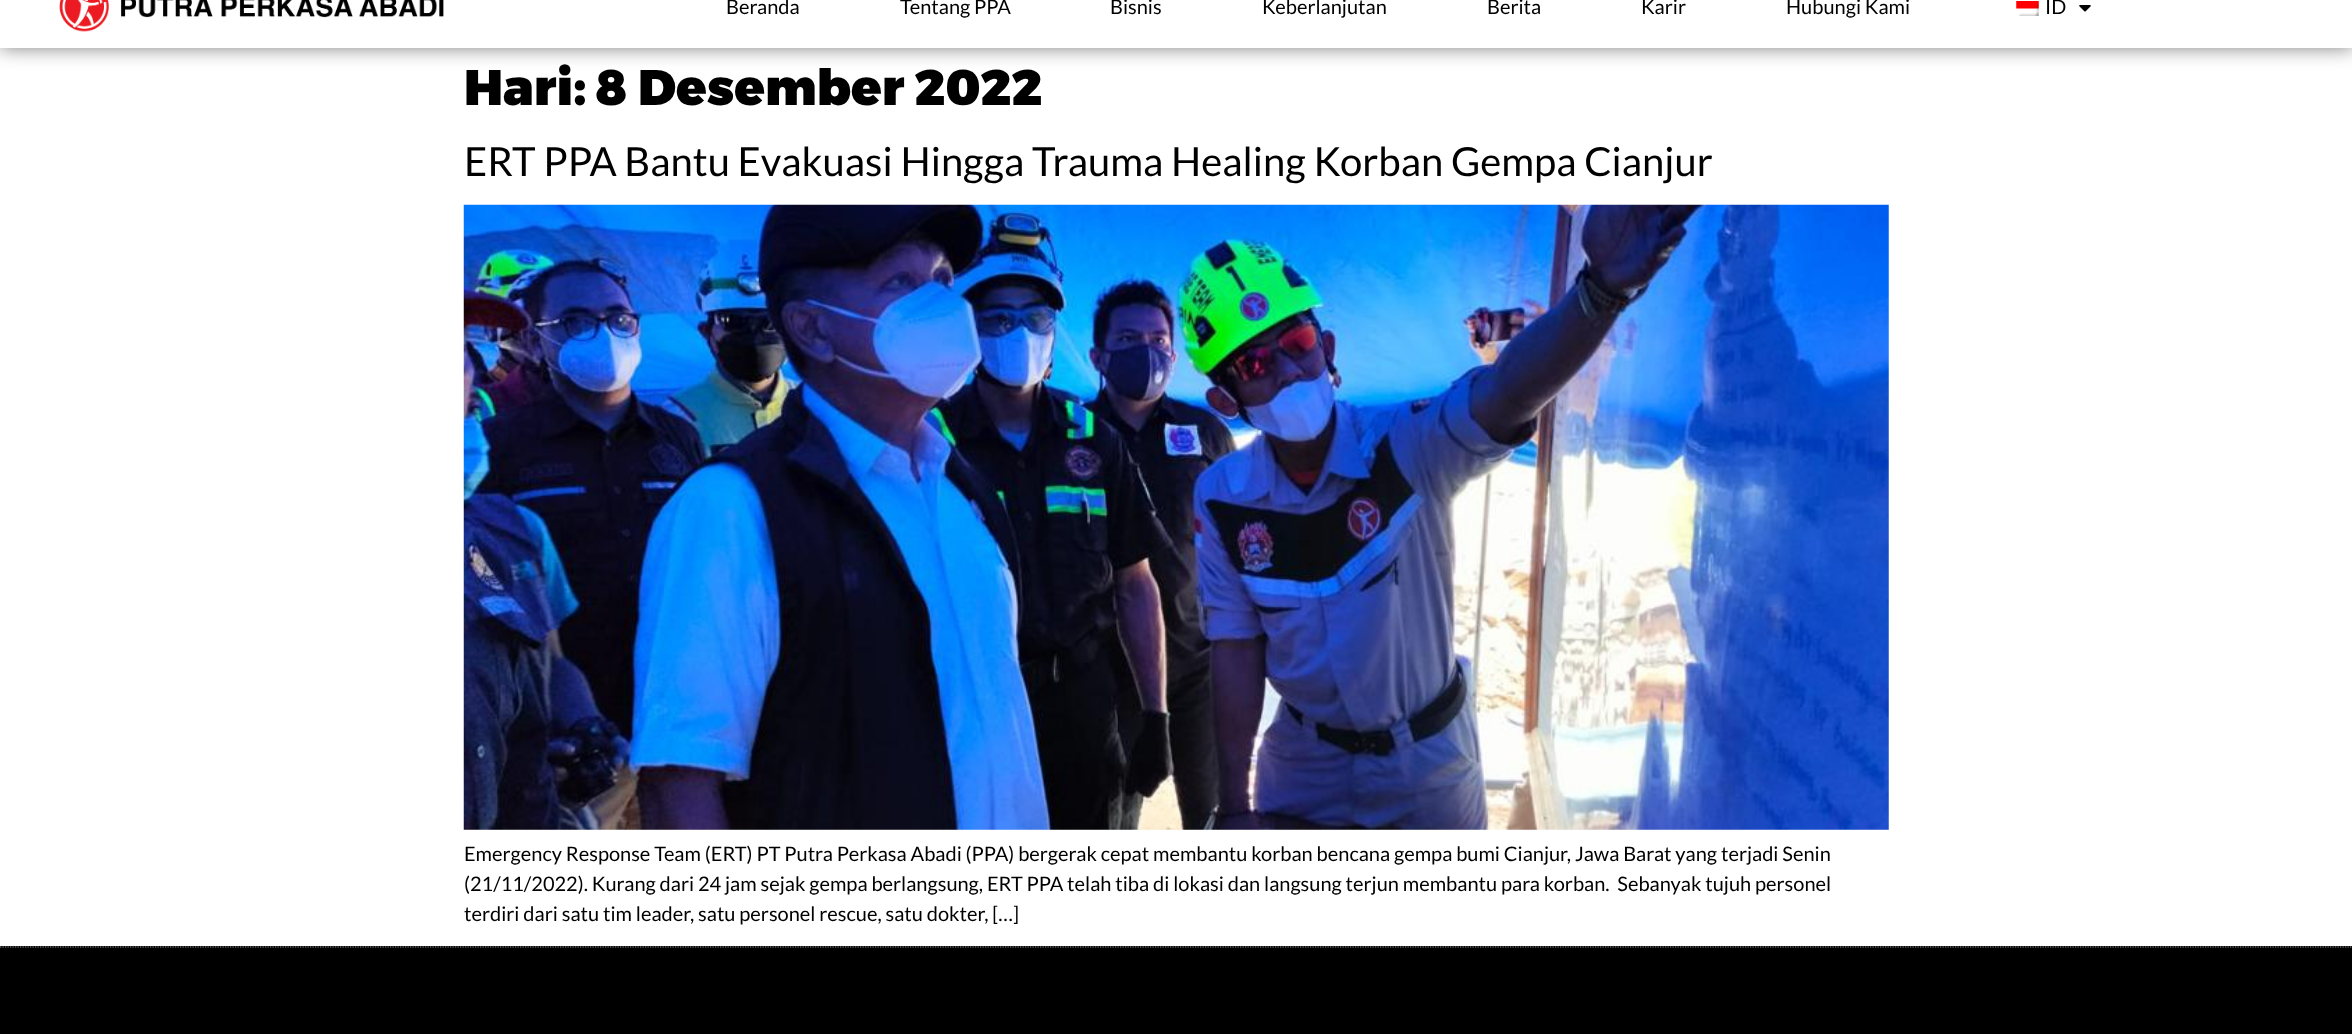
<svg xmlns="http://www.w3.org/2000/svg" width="2352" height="1034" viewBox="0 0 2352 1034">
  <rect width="100%" height="100%" fill="rgb(255,255,255)"/>
  <rect x="0" y="-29" width="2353" height="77" fill="rgba(0,0,0,0.5)" filter="blur(9.5px)"/>
  <rect x="0" y="0" width="2352" height="48" fill="rgb(255,255,255)"/>
  <image x="59" y="0" width="385" height="32" href="pic1.png"/>
  <g font-family="Lato" font-size="20" fill="rgb(0,0,0)">
    <text x="726" y="14">Beranda</text>
    <text x="900" y="14">Tentang PPA</text>
    <text x="1110" y="14">Bisnis</text>
    <text x="1262" y="14">Keberlanjutan</text>
    <text x="1487" y="14">Berita</text>
    <text x="1641" y="14">Karir</text>
    <text x="1786" y="14">Hubungi Kami</text>
  </g>
  <image x="2016" y="1" width="23" height="15" href="pic2.png"/>
  <text x="2045" y="14" font-family="Lato" font-size="20" fill="rgb(0,0,0)">ID</text>
  <image x="2079" y="5" width="12" height="7" href="pic3.png"/>
  <text x="464" y="105" font-family="Montserrat" font-size="50" font-weight="900" fill="rgb(0,0,0)">Hari: 8 Desember 2022</text>
  <text x="464" y="176" font-family="Lato" font-size="40" fill="rgb(0,0,0)">ERT PPA Bantu Evakuasi Hingga Trauma Healing Korban Gempa Cianjur</text>
  <image x="463" y="204" width="1426" height="626" href="pic4.png"/>
  <g font-family="Lato" font-size="20" fill="rgb(0,0,0)">
    <text xml:space="preserve"><tspan x="464" y="861">Emergency Response Team (ERT) PT Putra Perkasa Abadi (PPA) bergerak cepat membantu korban bencana gempa bumi Cianjur, Jawa Barat yang terjadi Senin</tspan><tspan x="464" y="891">(21/11/2022). Kurang dari 24 jam sejak gempa berlangsung, ERT PPA telah tiba di lokasi dan langsung terjun membantu para korban.  Sebanyak tujuh personel</tspan><tspan x="464" y="921">terdiri dari satu tim leader, satu personel rescue, satu dokter, […]</tspan></text>
  </g>
  <rect x="0" y="946" width="2352" height="88" fill="rgb(0,0,0)"/>
  <path d="M0 947H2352.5" fill="none" stroke="rgb(150,150,150)" stroke-width="1.2" stroke-dasharray="1.25 1.25"/>
</svg>
